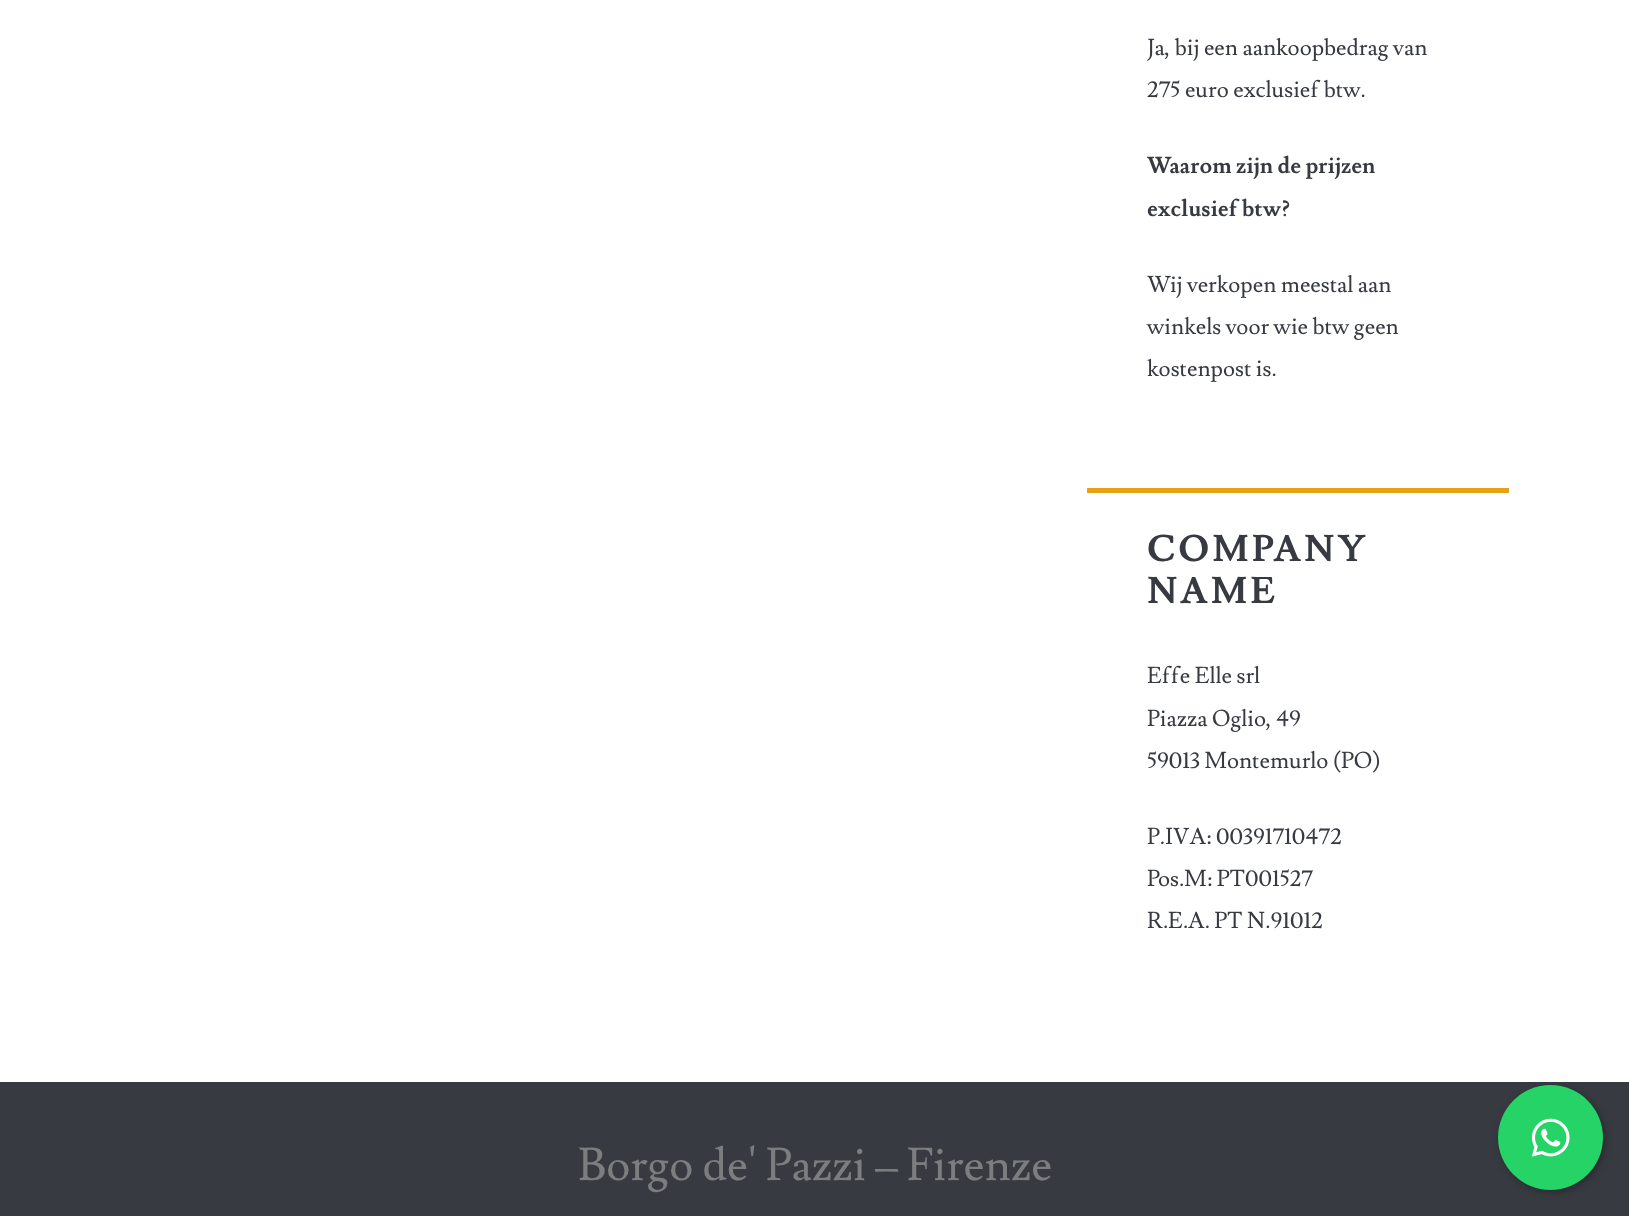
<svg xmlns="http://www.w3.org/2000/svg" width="1629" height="1216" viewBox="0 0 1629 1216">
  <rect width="100%" height="100%" fill="rgb(255,255,255)"/>
  <g font-family="Lusitana" font-size="22.75" fill="rgb(55,59,65)">
    <text>
      <tspan x="1147" y="55">Ja, bij een aankoopbedrag van</tspan>
      <tspan x="1147" y="97">275 euro exclusief btw.</tspan>
    </text>
  </g>
  <g font-family="Lusitana" font-size="22.75" font-weight="bold" fill="rgb(55,59,65)">
    <text>
      <tspan x="1147" y="173">Waarom zijn de prijzen</tspan>
      <tspan x="1147" y="216">exclusief btw?</tspan>
    </text>
  </g>
  <g font-family="Lusitana" font-size="22.75" fill="rgb(55,59,65)">
    <text>
      <tspan x="1147" y="292">Wij verkopen meestal aan</tspan>
      <tspan x="1147" y="334">winkels voor wie btw geen</tspan>
      <tspan x="1147" y="376">kostenpost is.</tspan>
    </text>
  </g>
  <rect x="1087" y="488" width="422" height="5" fill="rgb(230,161,23)"/>
  <g font-family="Lusitana" font-size="36.75" font-weight="bold" letter-spacing="3" fill="rgb(55,59,65)">
    <text>
      <tspan x="1147" y="561">COMPANY</tspan>
      <tspan x="1147" y="603">NAME</tspan>
    </text>
  </g>
  <g font-family="Lusitana" font-size="22.75" fill="rgb(55,59,65)">
    <text>
      <tspan x="1147" y="683">Effe Elle srl</tspan>
      <tspan x="1147" y="726">Piazza Oglio, 49</tspan>
      <tspan x="1147" y="768">59013 Montemurlo (PO)</tspan>
    </text>
    <text>
      <tspan x="1147" y="844">P.IVA: 00391710472</tspan>
      <tspan x="1147" y="886">Pos.M: PT001527</tspan>
      <tspan x="1147" y="928">R.E.A. PT N.91012</tspan>
    </text>
  </g>
  <rect x="0" y="1082" width="1629" height="134" fill="rgb(55,59,65)"/>
  <text x="578" y="1180" font-family="Lusitana" font-size="45.5" fill="rgb(124,125,127)">Borgo de' Pazzi – Firenze</text>
  <rect x="1500" y="1087" width="105" height="105" rx="52.5" fill="rgba(0,0,0,0.3)" filter="blur(3.5px)"/>
  <circle cx="1550.5" cy="1137.5" r="52.5" fill="rgb(37,211,102)"/>
  <image x="1531" y="1118" width="39" height="39" href="pic1.png"/>
</svg>
